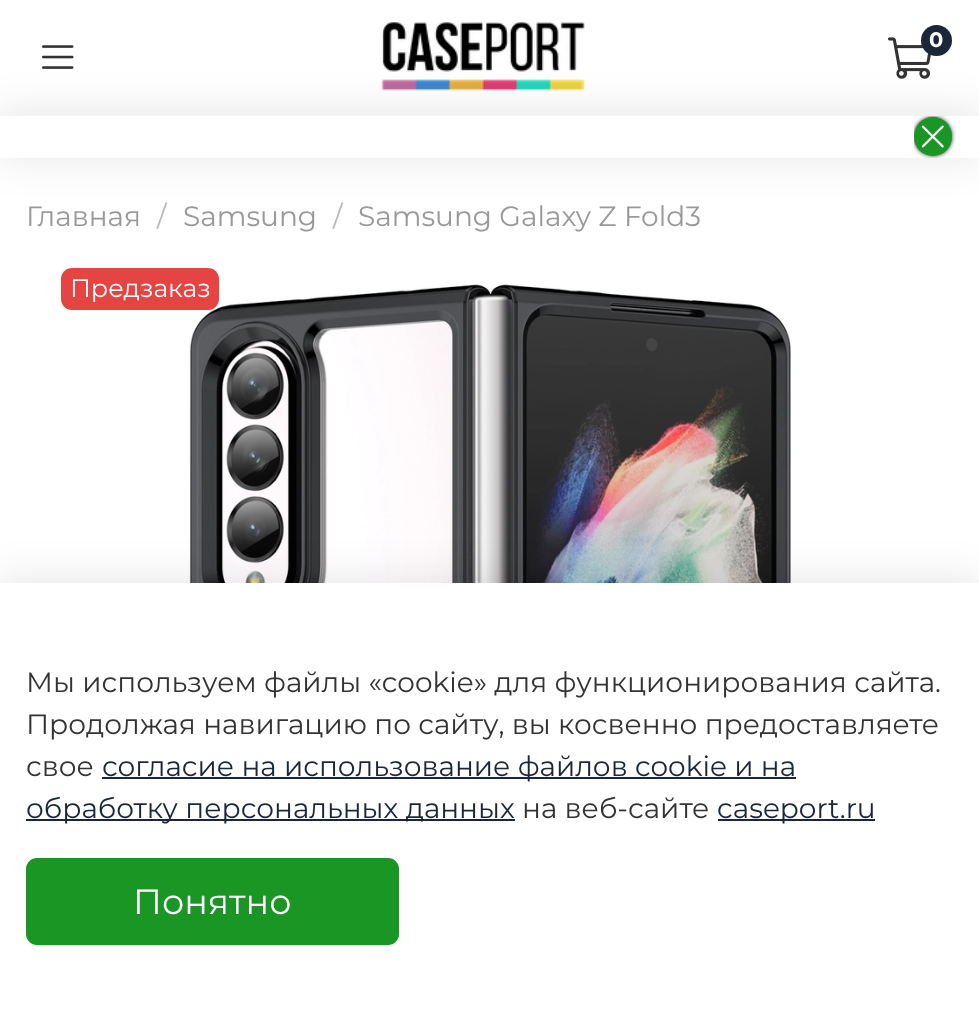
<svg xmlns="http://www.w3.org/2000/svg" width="979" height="1023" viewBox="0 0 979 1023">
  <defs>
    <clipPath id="clip1"><rect x="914" y="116" width="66" height="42"/></clipPath>
  </defs>
  <rect width="100%" height="100%" fill="rgb(255,255,255)"/>
  <image x="381" y="22" width="204" height="69" href="pic1.png"/>
  <image x="888" y="37" width="43" height="42" href="pic2.png"/>
  <circle cx="936.5" cy="40.5" r="15.5" fill="rgb(27,39,56)"/>
  <text x="929" y="47" font-family="Montserrat" font-size="21" font-weight="bold" fill="rgb(255,255,255)">0</text>
  <image x="42" y="45" width="32" height="24" href="pic3.png"/>
  <rect x="-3" y="110" width="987" height="49" fill="rgba(0,0,0,0.09)" filter="blur(20px)"/>
  <rect x="0" y="116" width="979" height="42" fill="rgb(255,255,255)"/>
  <g clip-path="url(#clip1)">
    <rect x="914" y="117" width="38" height="39" rx="19" fill="rgb(51,51,51)" filter="blur(2px)"/>
  </g>
  <rect x="914" y="117" width="38" height="39" rx="19" fill="rgb(26,150,36)"/>
  <image x="921" y="125" width="23" height="23" href="pic4.png"/>
  <text x="26" y="226" font-family="Montserrat" font-size="28" fill="rgb(153,153,153)">Главная</text>
  <text x="157" y="226" font-family="Montserrat" font-size="28" fill="rgb(184,184,184)">/</text>
  <text x="183" y="226" font-family="Montserrat" font-size="28" fill="rgb(153,153,153)">Samsung</text>
  <text x="333" y="226" font-family="Montserrat" font-size="28" fill="rgb(184,184,184)">/</text>
  <text x="358" y="226" font-family="Montserrat" font-size="28" fill="rgb(153,153,153)">Samsung Galaxy Z Fold3</text>
  <image x="189" y="284" width="602" height="299" href="pic5.png"/>
  <rect x="61" y="268" width="158" height="42" rx="11" fill="rgb(228,69,66)"/>
  <text x="70" y="297" font-family="Montserrat" font-size="25.25" fill="rgb(255,255,255)">Предзаказ</text>
  <rect x="-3" y="578" width="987" height="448" fill="rgba(0,0,0,0.09)" filter="blur(20px)"/>
  <rect x="0" y="583" width="979" height="440" fill="rgb(255,255,255)"/>
  <g font-family="Montserrat" font-size="28" fill="rgb(51,51,51)">
    <text>
      <tspan x="26" y="692">Мы используем файлы «cookie» для функционирования сайта.</tspan>
      <tspan x="26" y="734">Продолжая навигацию по сайту, вы косвенно предоставляете</tspan>
      <tspan x="26" y="776">свое</tspan>
    </text>
  </g>
  <rect x="102" y="777" width="694" height="2" fill="rgb(27,39,56)"/>
  <text x="102" y="776" font-family="Montserrat" font-size="28" fill="rgb(27,39,56)">согласие на использование файлов cookie и на</text>
  <rect x="26" y="819" width="489" height="2" fill="rgb(27,39,56)"/>
  <text x="26" y="818" font-family="Montserrat" font-size="28" fill="rgb(27,39,56)">обработку персональных данных</text>
  <text x="522" y="818" font-family="Montserrat" font-size="28" fill="rgb(51,51,51)">на веб-сайте</text>
  <rect x="718" y="819" width="157" height="2" fill="rgb(27,39,56)"/>
  <text x="717" y="818" font-family="Montserrat" font-size="28" fill="rgb(27,39,56)">caseport.ru</text>
  <rect x="26" y="858" width="373" height="87" rx="11" fill="rgb(26,150,36)"/>
  <text x="133" y="914" font-family="Montserrat" font-size="35" fill="rgb(255,255,255)">Понятно</text>
</svg>
